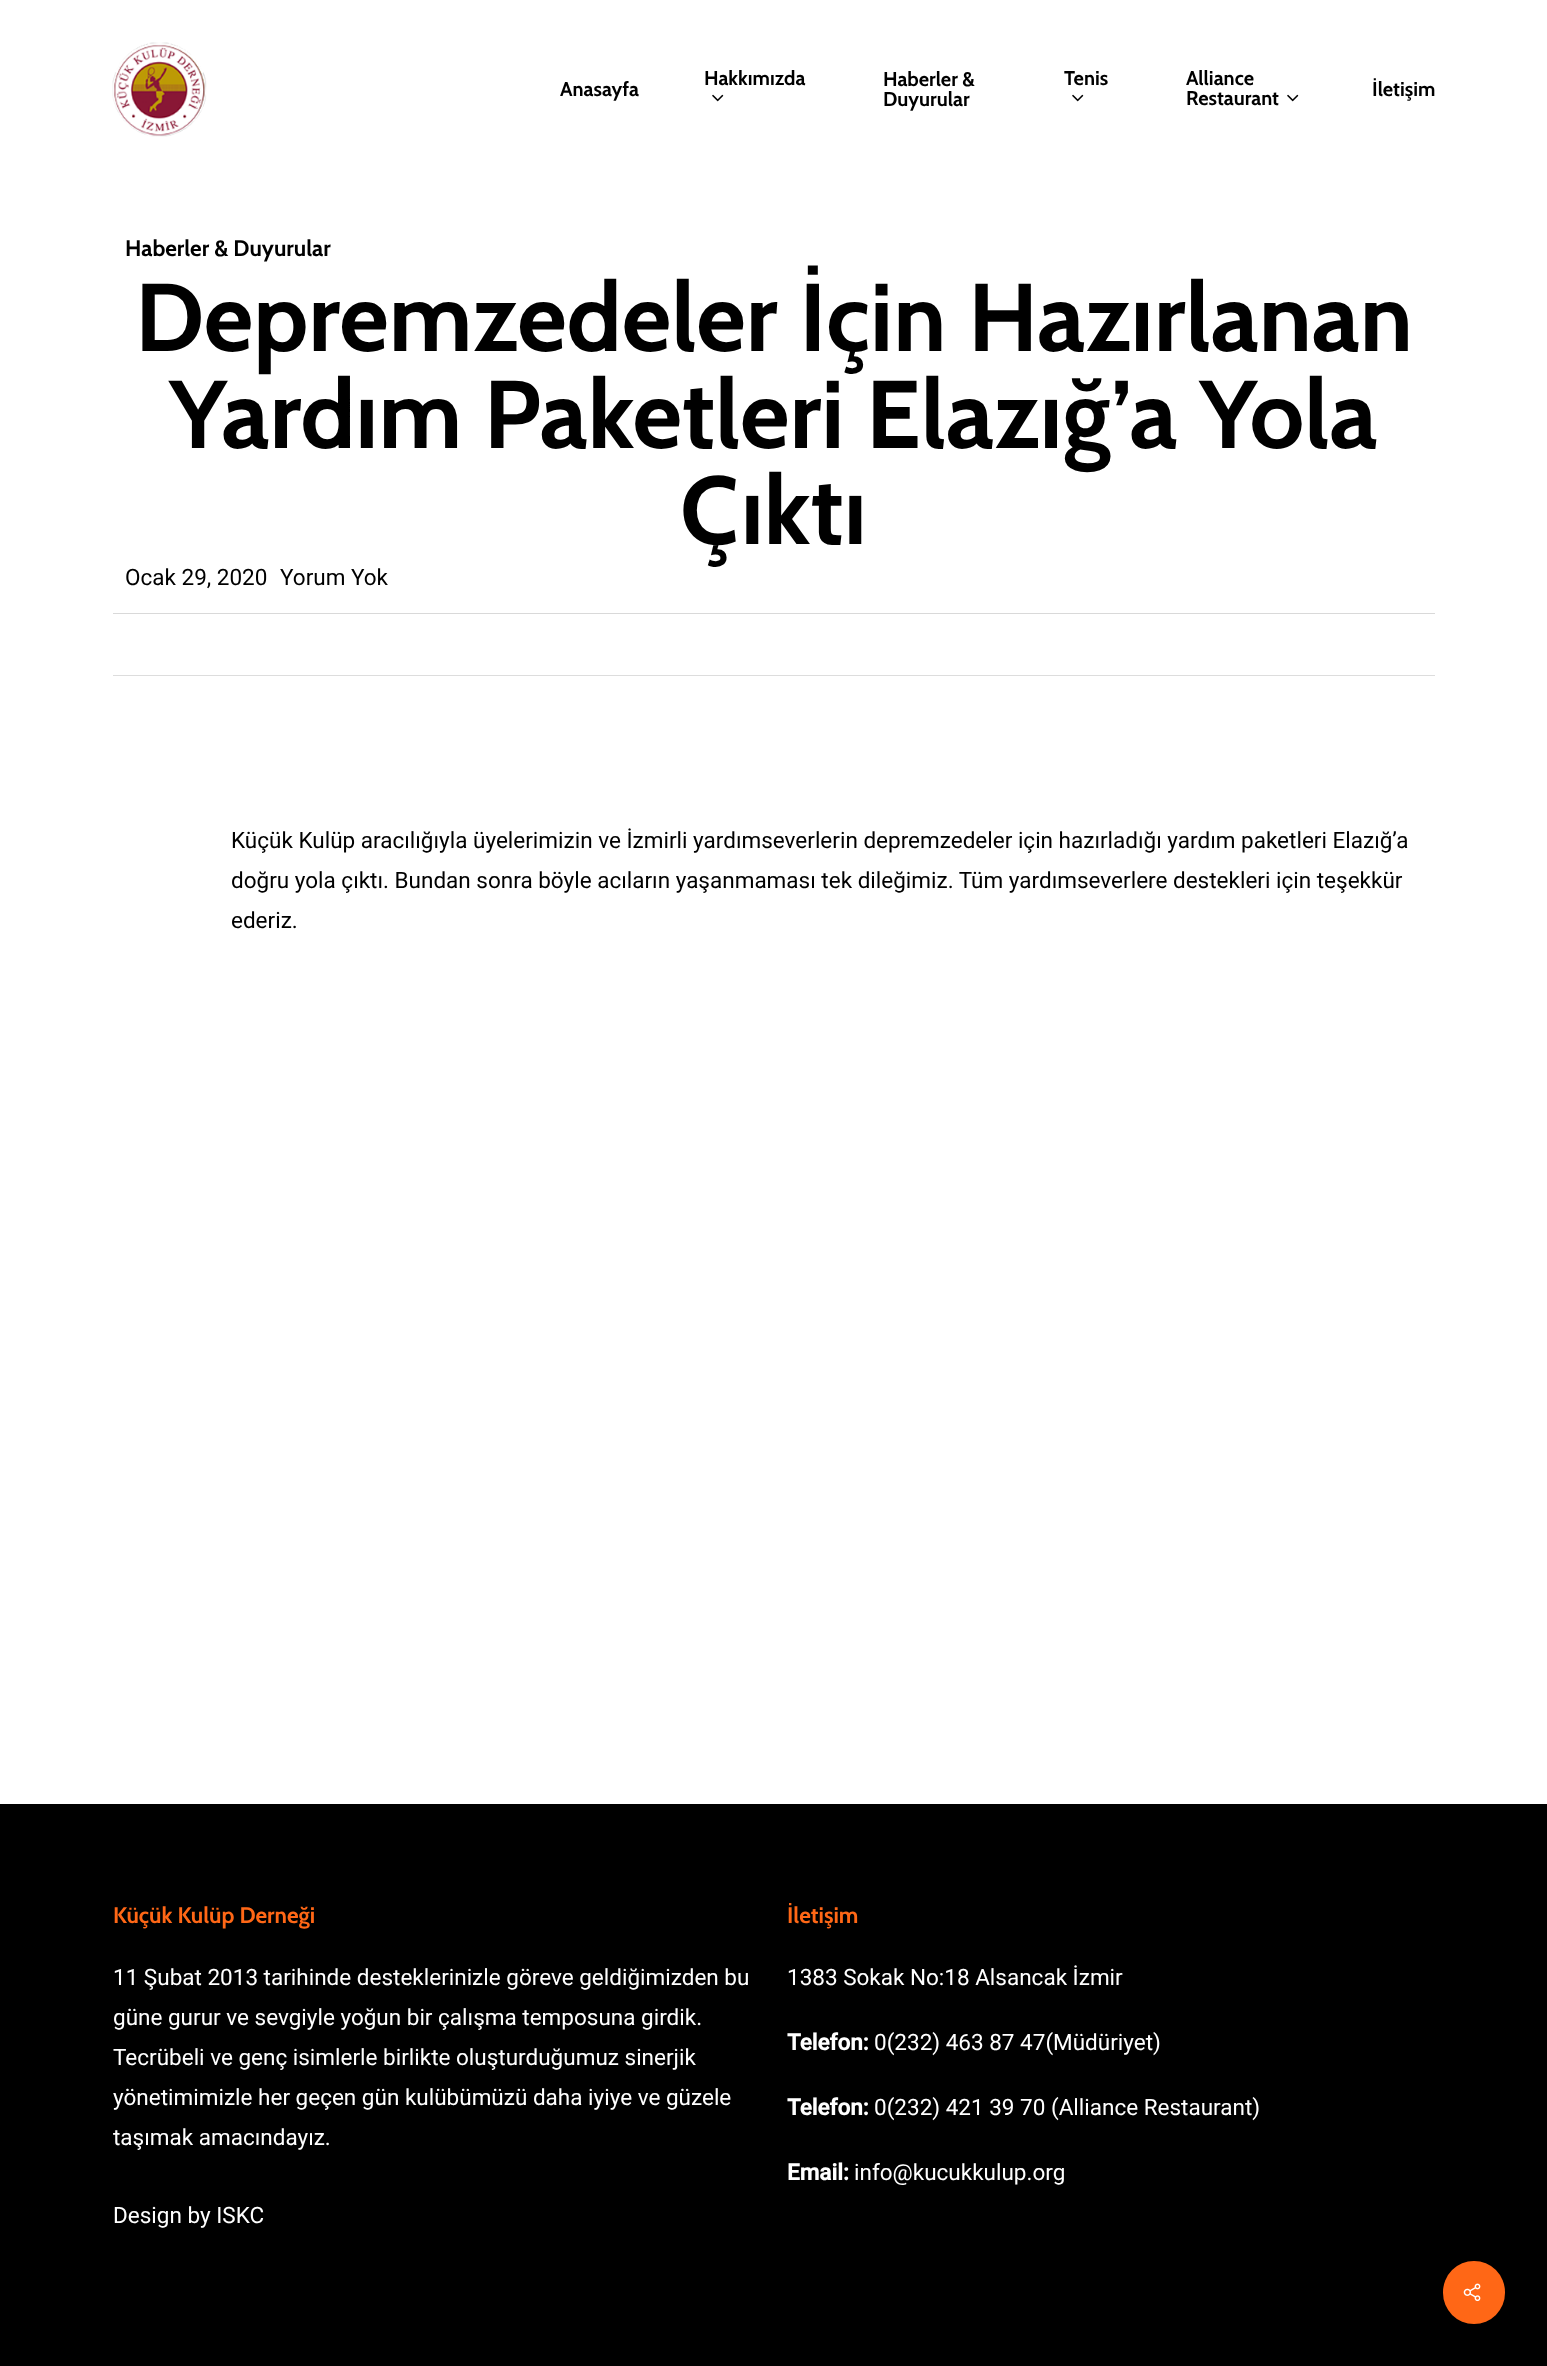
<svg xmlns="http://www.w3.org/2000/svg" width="1547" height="2366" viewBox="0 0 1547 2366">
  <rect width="100%" height="100%" fill="rgb(255,255,255)"/>
  <image x="112" y="42" width="95" height="95" href="pic1.png"/>
  <g font-family="Cabin" font-size="20" font-weight="bold" fill="rgb(0,0,0)">
    <text x="560" y="96">Anasayfa</text>
    <text x="704" y="85">Hakkımızda</text>
  </g>
  <image x="712" y="94" width="12" height="8" href="pic2.png"/>
  <g font-family="Cabin" font-size="20" font-weight="bold" fill="rgb(0,0,0)">
    <text>
      <tspan x="883" y="86">Haberler &amp;</tspan>
      <tspan x="883" y="106">Duyurular</tspan>
    </text>
    <text x="1064" y="85">Tenis</text>
  </g>
  <image x="1072" y="94" width="12" height="8" href="pic2.png"/>
  <g font-family="Cabin" font-size="20" font-weight="bold" fill="rgb(0,0,0)">
    <text>
      <tspan x="1186" y="85">Alliance</tspan>
      <tspan x="1186" y="105">Restaurant</tspan>
    </text>
  </g>
  <image x="1287" y="94" width="12" height="8" href="pic2.png"/>
  <text x="1372" y="96" font-family="Cabin" font-size="20" font-weight="bold" fill="rgb(0,0,0)">İletişim</text>
  <rect x="113" y="675" width="1322" height="1" fill="rgb(221,221,221)"/>
  <rect x="113" y="613" width="1322" height="1" fill="rgb(217,217,217)"/>
  <text x="125" y="256" font-family="Cabin" font-size="22.5" font-weight="bold" fill="rgb(0,0,0)">Haberler &amp; Duyurular</text>
  <g font-family="Cabin" font-size="96.25" font-weight="bold" fill="rgb(0,0,0)">
    <text x="135" y="351">Depremzedeler İçin Hazırlanan</text>
    <text x="169" y="448">Yardım Paketleri Elazığ’a Yola</text>
    <text x="680" y="544">Çıktı</text>
  </g>
  <g font-family="Roboto" font-size="22.5" fill="rgb(0,0,0)">
    <text x="125" y="585">Ocak 29, 2020</text>
    <text x="280" y="585">Yorum Yok</text>
    <text>
      <tspan x="231" y="848">Küçük Kulüp aracılığıyla üyelerimizin ve İzmirli yardımseverlerin depremzedeler için hazırladığı yardım paketleri Elazığ’a</tspan>
      <tspan x="231" y="888">doğru yola çıktı. Bundan sonra böyle acıların yaşanmaması tek dileğimiz. Tüm yardımseverlere destekleri için teşekkür</tspan>
      <tspan x="231" y="928">ederiz.</tspan>
    </text>
  </g>
  <rect x="0" y="1804" width="1547" height="562" fill="rgb(0,0,0)"/>
  <text x="113" y="1923" font-family="Cabin" font-size="22.5" font-weight="bold" fill="rgb(255,103,22)">Küçük Kulüp Derneği</text>
  <g font-family="Roboto" font-size="22.5" fill="rgb(255,255,255)">
    <text>
      <tspan x="113" y="1985">11 Şubat 2013 tarihinde desteklerinizle göreve geldiğimizden bu</tspan>
      <tspan x="113" y="2025">güne gurur ve sevgiyle yoğun bir çalışma temposuna girdik.</tspan>
      <tspan x="113" y="2065">Tecrübeli ve genç isimlerle birlikte oluşturduğumuz sinerjik</tspan>
      <tspan x="113" y="2105">yönetimimizle her geçen gün kulübümüzü daha iyiye ve güzele</tspan>
      <tspan x="113" y="2145">taşımak amacındayız.</tspan>
    </text>
    <text x="113" y="2223">Design by ISKC</text>
  </g>
  <text x="787" y="1923" font-family="Cabin" font-size="22.5" font-weight="bold" fill="rgb(255,103,22)">İletişim</text>
  <text x="787" y="1985" font-family="Roboto" font-size="22.5" fill="rgb(255,255,255)">1383 Sokak No:18 Alsancak İzmir</text>
  <text x="787" y="2050" font-family="Roboto" font-size="22.5" font-weight="bold" fill="rgb(255,255,255)">Telefon:</text>
  <text x="874" y="2050" font-family="Roboto" font-size="22.5" fill="rgb(255,255,255)">0(232) 463 87 47(Müdüriyet)</text>
  <text x="787" y="2115" font-family="Roboto" font-size="22.5" font-weight="bold" fill="rgb(255,255,255)">Telefon:</text>
  <text x="874" y="2115" font-family="Roboto" font-size="22.5" fill="rgb(255,255,255)">0(232) 421 39 70 (Alliance Restaurant)</text>
  <text x="787" y="2180" font-family="Roboto" font-size="22.5" font-weight="bold" fill="rgb(255,255,255)">Email:</text>
  <text x="854" y="2180" font-family="Roboto" font-size="22.5" fill="rgb(255,255,255)">info@kucukkulup.org</text>
  <rect x="1443" y="2261" width="62" height="63" rx="31" fill="rgb(255,103,22)"/>
  <image x="1463" y="2283" width="18" height="19" href="pic3.png"/>
</svg>
